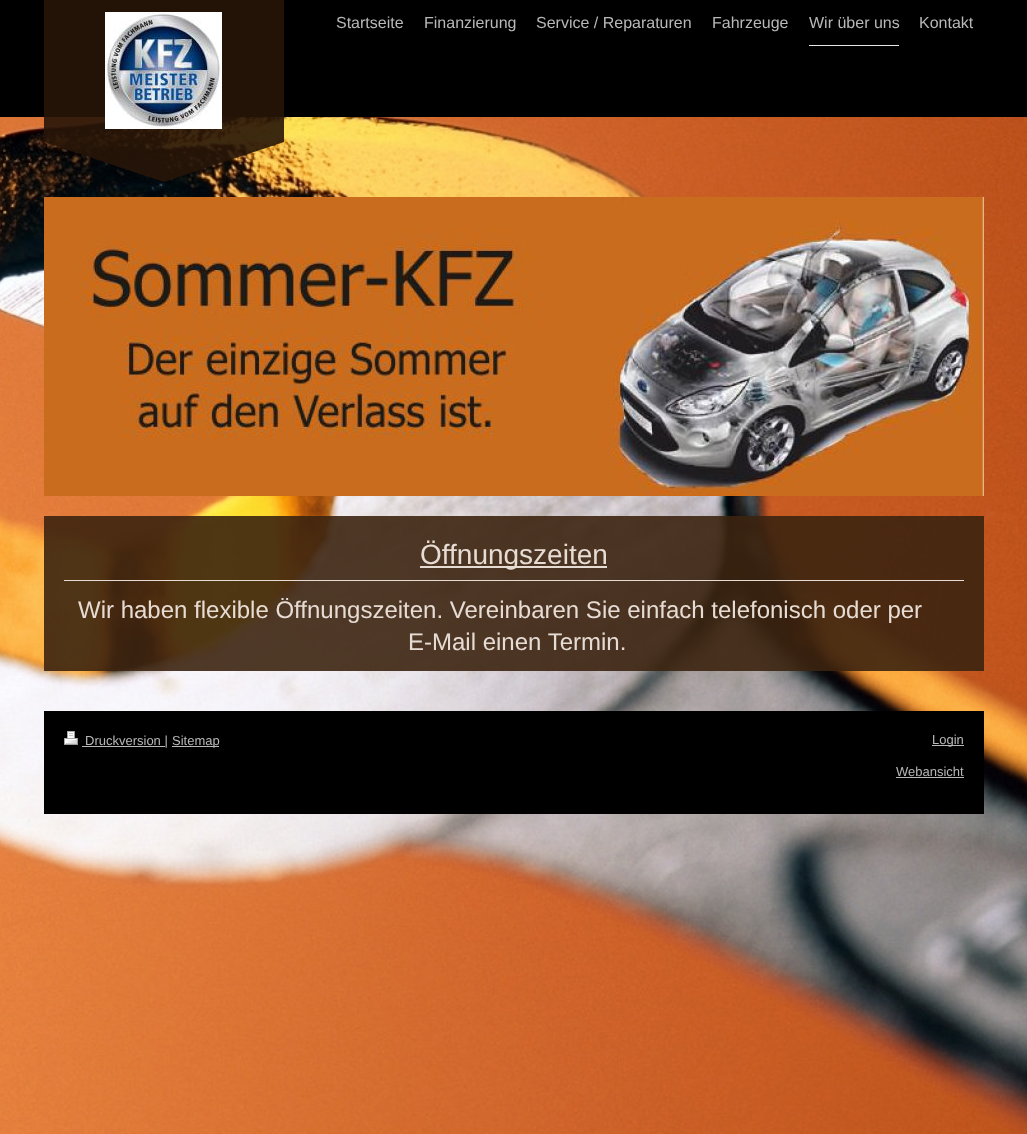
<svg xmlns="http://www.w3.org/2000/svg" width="1027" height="1134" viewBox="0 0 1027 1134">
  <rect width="100%" height="100%" fill="rgb(255,255,255)"/>
  <image x="0" y="117" width="1027" height="1017" href="pic1.png"/>
  <rect x="0" y="0" width="1027" height="117" fill="rgb(0,0,0)"/>
  <rect x="44" y="0" width="240" height="142" fill="rgba(39,21,8,0.9)"/>
  <image x="105" y="12" width="117" height="117" href="pic2.png"/>
  <path d="M44 142H284L164 182Z" fill="rgba(39,21,8,0.9)"/>
  <g font-family="Liberation Sans" font-size="16" fill="rgb(184,184,184)">
    <text x="336" y="28">Startseite</text>
    <text x="424" y="28">Finanzierung</text>
    <text x="536" y="28">Service / Reparaturen</text>
    <text x="712" y="28">Fahrzeuge</text>
  </g>
  <rect x="809" y="45" width="90" height="1" fill="rgb(230,230,230)"/>
  <g font-family="Liberation Sans" font-size="16" fill="rgb(184,184,184)">
    <text x="809" y="28">Wir über uns</text>
    <text x="919" y="28">Kontakt</text>
  </g>
  <image x="44" y="197" width="940" height="299" href="pic3.png"/>
  <rect x="44" y="516" width="940" height="155" fill="rgba(60,35,15,0.9)"/>
  <rect x="64" y="580" width="900" height="1" fill="rgb(231,220,212)"/>
  <rect x="420" y="566" width="187" height="2" fill="rgb(231,220,212)"/>
  <text x="420" y="564" font-family="Liberation Sans" font-size="28" fill="rgb(231,220,212)">Öffnungszeiten</text>
  <g font-family="Liberation Sans" font-size="24" fill="rgb(231,220,212)">
    <text x="78" y="618">Wir haben flexible Öffnungszeiten. Vereinbaren Sie einfach telefonisch oder per</text>
    <text x="408" y="650">E-Mail einen Termin.</text>
  </g>
  <rect x="44" y="711" width="940" height="103" fill="rgb(0,0,0)"/>
  <image x="64" y="731" width="14" height="14" href="pic4.png"/>
  <rect x="82" y="746" width="83" height="1" fill="rgb(184,184,184)"/>
  <text x="85" y="745" font-family="Liberation Sans" font-size="13" fill="rgb(184,184,184)">Druckversion |</text>
  <rect x="172" y="746" width="47" height="1" fill="rgb(184,184,184)"/>
  <text x="172" y="745" font-family="Liberation Sans" font-size="13" fill="rgb(184,184,184)">Sitemap</text>
  <rect x="932" y="745" width="32" height="1" fill="rgb(184,184,184)"/>
  <g font-family="Liberation Sans" font-size="13" fill="rgb(184,184,184)">
    <text x="932" y="744">Login</text>
    <text x="896" y="776">Webansicht</text>
  </g>
  <rect x="896" y="777" width="68" height="1" fill="rgb(184,184,184)"/>
</svg>
